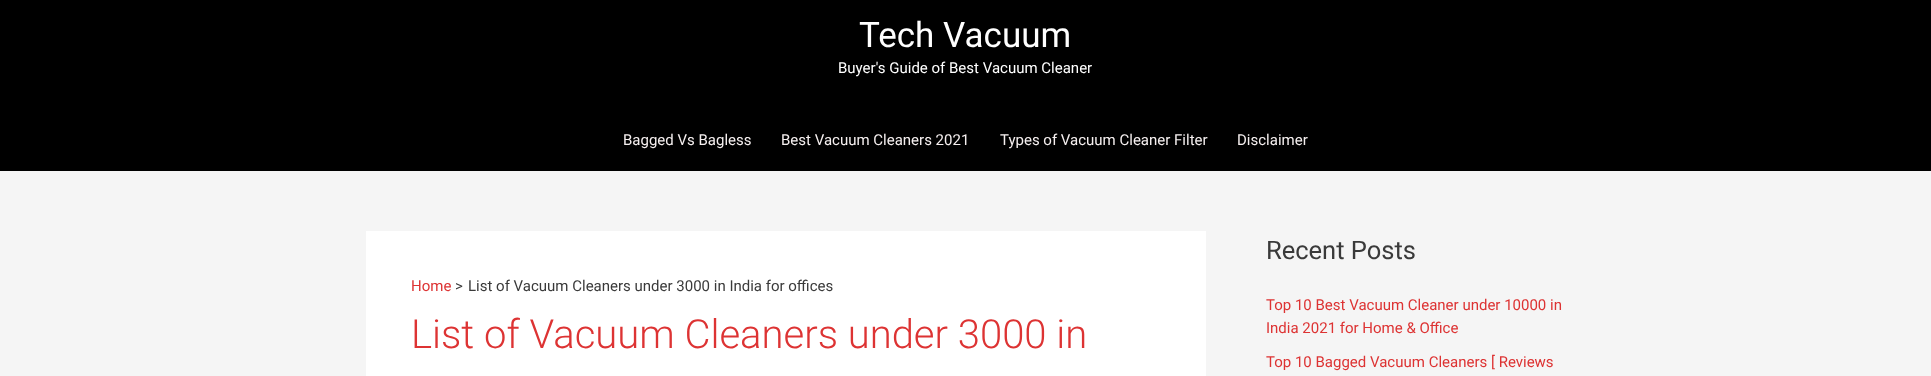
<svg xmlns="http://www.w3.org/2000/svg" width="1931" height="376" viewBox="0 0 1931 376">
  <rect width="100%" height="100%" fill="rgb(245,245,245)"/>
  <rect x="0" y="0" width="1931" height="171" fill="rgb(0,0,0)"/>
  <text x="859" y="47" font-family="Roboto" font-size="35" fill="rgb(255,255,255)">Tech Vacuum</text>
  <text x="838" y="73" font-family="Roboto" font-size="15" fill="rgb(255,255,255)">Buyer's Guide of Best Vacuum Cleaner</text>
  <g font-family="Roboto" font-size="15" fill="rgb(245,239,239)">
    <text x="623" y="145">Bagged Vs Bagless</text>
    <text x="781" y="145">Best Vacuum Cleaners 2021</text>
    <text x="1000" y="145">Types of Vacuum Cleaner Filter</text>
    <text x="1237" y="145">Disclaimer</text>
  </g>
  <rect x="366" y="231" width="840" height="145" fill="rgb(255,255,255)"/>
  <text x="411" y="291" font-family="Roboto" font-size="15" fill="rgb(221,51,51)">Home</text>
  <g font-family="Roboto" font-size="15" fill="rgb(58,58,58)">
    <text x="455" y="291">&gt;</text>
    <text x="468" y="291">List of Vacuum Cleaners under 3000 in India for offices</text>
  </g>
  <text x="411" y="348" font-family="Roboto" font-size="40" font-weight="300" fill="rgb(221,51,51)">List of Vacuum Cleaners under 3000 in</text>
  <text x="1266" y="259" font-family="Roboto" font-size="25.5" fill="rgb(58,58,58)">Recent Posts</text>
  <g font-family="Roboto" font-size="15" fill="rgb(221,51,51)">
    <text>
      <tspan x="1266" y="310">Top 10 Best Vacuum Cleaner under 10000 in</tspan>
      <tspan x="1266" y="333">India 2021 for Home &amp; Office</tspan>
    </text>
    <text x="1266" y="367">Top 10 Bagged Vacuum Cleaners [ Reviews</text>
  </g>
</svg>
